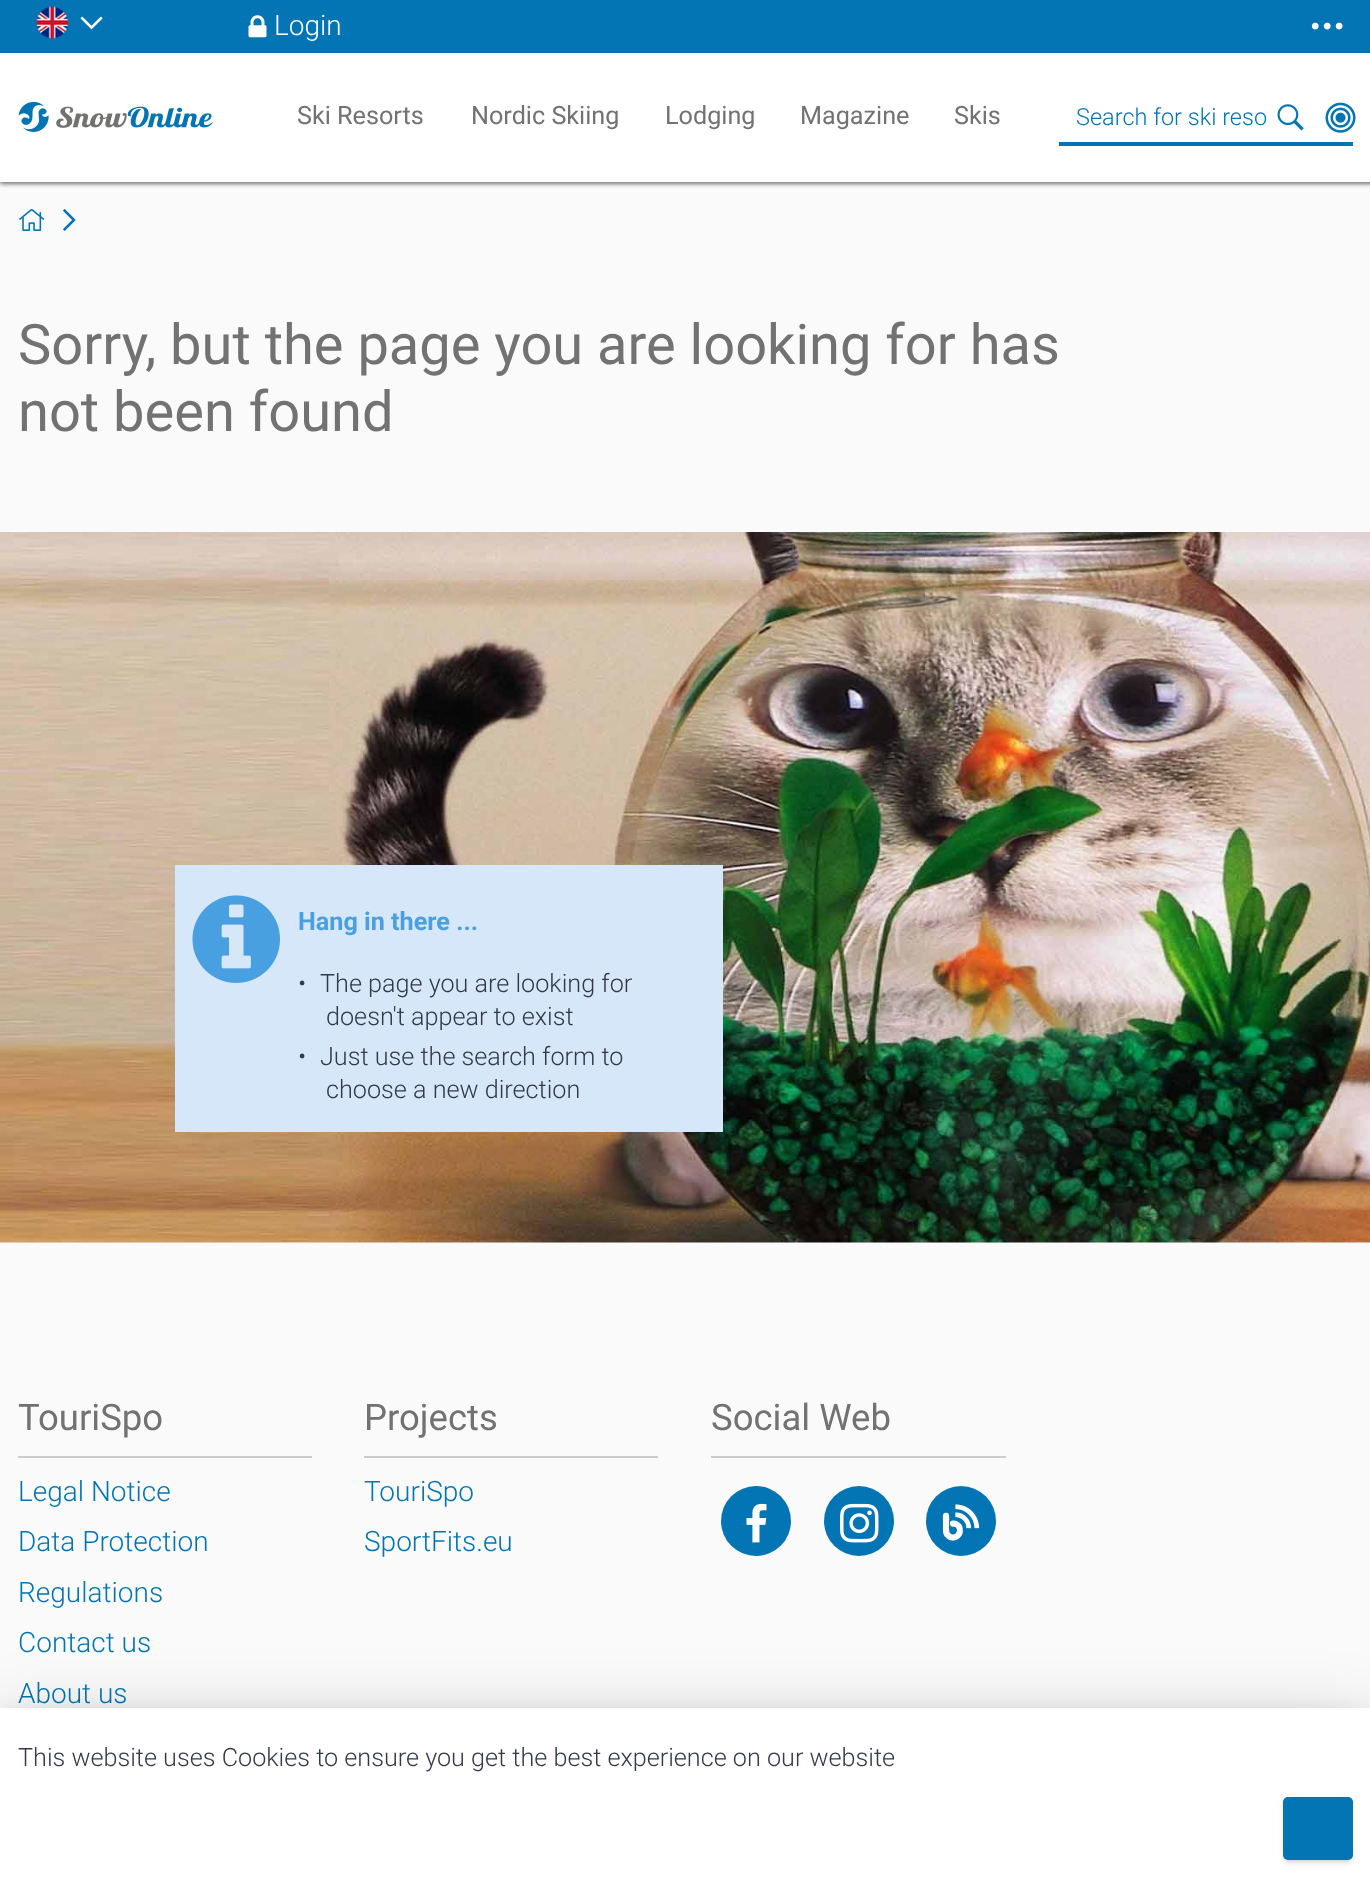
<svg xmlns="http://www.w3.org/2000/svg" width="1370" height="1901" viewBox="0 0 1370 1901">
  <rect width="100%" height="100%" fill="rgb(250,250,250)"/>
  <rect x="0" y="51" width="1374" height="133" fill="rgb(114,114,114)" filter="blur(2px)"/>
  <rect x="0" y="0" width="1370" height="53" fill="rgb(3,117,180)"/>
  <image x="36" y="6" width="33" height="33" href="pic1.png"/>
  <image x="80" y="16" width="23" height="14" href="pic2.png"/>
  <image x="248" y="15" width="19" height="23" href="pic3.png"/>
  <text x="274" y="35" font-family="Roboto" font-size="28" font-weight="300" fill="rgb(255,255,255)">Login</text>
  <image x="1311" y="22" width="32" height="8" href="pic4.png"/>
  <rect x="0" y="53" width="1370" height="129" fill="rgb(255,255,255)"/>
  <image x="18" y="102" width="195" height="30" href="pic5.png"/>
  <g font-family="Roboto" font-size="25.2" fill="rgb(114,114,114)">
    <text x="297" y="124">Ski Resorts</text>
    <text x="471" y="124">Nordic Skiing</text>
    <text x="665" y="124">Lodging</text>
    <text x="800" y="124">Magazine</text>
    <text x="954" y="124">Skis</text>
  </g>
  <rect x="1059" y="142" width="294" height="4" fill="rgb(3,117,180)"/>
  <text x="1076" y="125" font-family="Roboto" font-size="23.5" font-weight="300" fill="rgb(3,117,180)">Search for ski reso</text>
  <image x="1277" y="104" width="27" height="27" href="pic6.png"/>
  <image x="1325" y="102" width="31" height="31" href="pic7.png"/>
  <image x="19" y="209" width="26" height="22" href="pic8.png"/>
  <image x="63" y="209" width="13" height="22" href="pic9.png"/>
  <g font-family="Roboto" font-size="56" fill="rgb(114,114,114)">
    <text>
      <tspan x="18" y="364">Sorry, but the page you are looking for has</tspan>
      <tspan x="18" y="431">not been found</tspan>
    </text>
  </g>
  <image x="0" y="532" width="1370" height="711" href="pic10.png"/>
  <rect x="175" y="865" width="548" height="267" fill="rgb(215,231,250)"/>
  <image x="192" y="895" width="88" height="88" href="pic11.png"/>
  <text x="298" y="930" font-family="Roboto" font-size="25.2" font-weight="bold" fill="rgb(73,160,224)">Hang in there ...</text>
  <g font-family="Roboto" font-size="25.2" font-weight="300" fill="rgb(49,57,74)">
    <text x="298" y="992">•</text>
    <text x="320" y="992">The page you are looking for</text>
    <text x="326" y="1025">doesn't appear to exist</text>
    <text x="298" y="1065">•</text>
    <text x="320" y="1065">Just use the search form to</text>
    <text x="326" y="1098">choose a new direction</text>
  </g>
  <rect x="18" y="1456" width="294" height="2" fill="rgb(204,204,204)"/>
  <text x="18" y="1430" font-family="Roboto" font-size="36.5" fill="rgb(114,114,114)">TouriSpo</text>
  <g font-family="Roboto" font-size="28" font-weight="300" fill="rgb(3,117,180)">
    <text>
      <tspan x="18" y="1501">Legal Notice</tspan>
      <tspan x="18" y="1551">Data Protection</tspan>
      <tspan x="18" y="1602">Regulations</tspan>
      <tspan x="18" y="1652">Contact us</tspan>
      <tspan x="18" y="1703">About us</tspan>
    </text>
  </g>
  <rect x="364" y="1456" width="294" height="2" fill="rgb(204,204,204)"/>
  <text x="364" y="1430" font-family="Roboto" font-size="36.5" fill="rgb(114,114,114)">Projects</text>
  <g font-family="Roboto" font-size="28" font-weight="300" fill="rgb(3,117,180)">
    <text>
      <tspan x="364" y="1501">TouriSpo</tspan>
      <tspan x="364" y="1551">SportFits.eu</tspan>
    </text>
  </g>
  <rect x="711" y="1456" width="295" height="2" fill="rgb(204,204,204)"/>
  <text x="711" y="1430" font-family="Roboto" font-size="36.5" fill="rgb(114,114,114)">Social Web</text>
  <circle cx="756" cy="1521" r="35" fill="rgb(3,117,180)"/>
  <image x="746" y="1503" width="21" height="40" href="pic12.png"/>
  <circle cx="859" cy="1521" r="35" fill="rgb(3,117,180)"/>
  <image x="840" y="1503" width="39" height="40" href="pic13.png"/>
  <circle cx="961" cy="1521" r="35" fill="rgb(3,117,180)"/>
  <image x="942" y="1504" width="38" height="37" href="pic14.png"/>
  <rect x="0" y="1726" width="1370" height="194" fill="rgba(0,0,0,0.22)" filter="blur(16px)"/>
  <rect x="0" y="1733" width="1370" height="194" fill="rgba(0,0,0,0.25)" filter="blur(39.5px)"/>
  <rect x="0" y="1708" width="1370" height="193" fill="rgb(255,255,255)"/>
  <text x="18" y="1766" font-family="Roboto" font-size="25.2" font-weight="300" fill="rgb(49,57,74)">This website uses Cookies to ensure you get the best experience on our website</text>
  <rect x="1283" y="1799" width="70" height="63" rx="5" fill="rgba(153,153,153,0.12)" filter="blur(4.5px)"/>
  <rect x="1286" y="1806" width="63" height="56" rx="2" fill="rgba(153,153,153,0.2)" filter="blur(1px)"/>
  <rect x="1283" y="1801" width="70" height="63" rx="5" fill="rgba(153,153,153,0.14)" filter="blur(2px)"/>
  <rect x="1283" y="1797" width="70" height="63" rx="5" fill="rgb(3,117,180)"/>
</svg>
